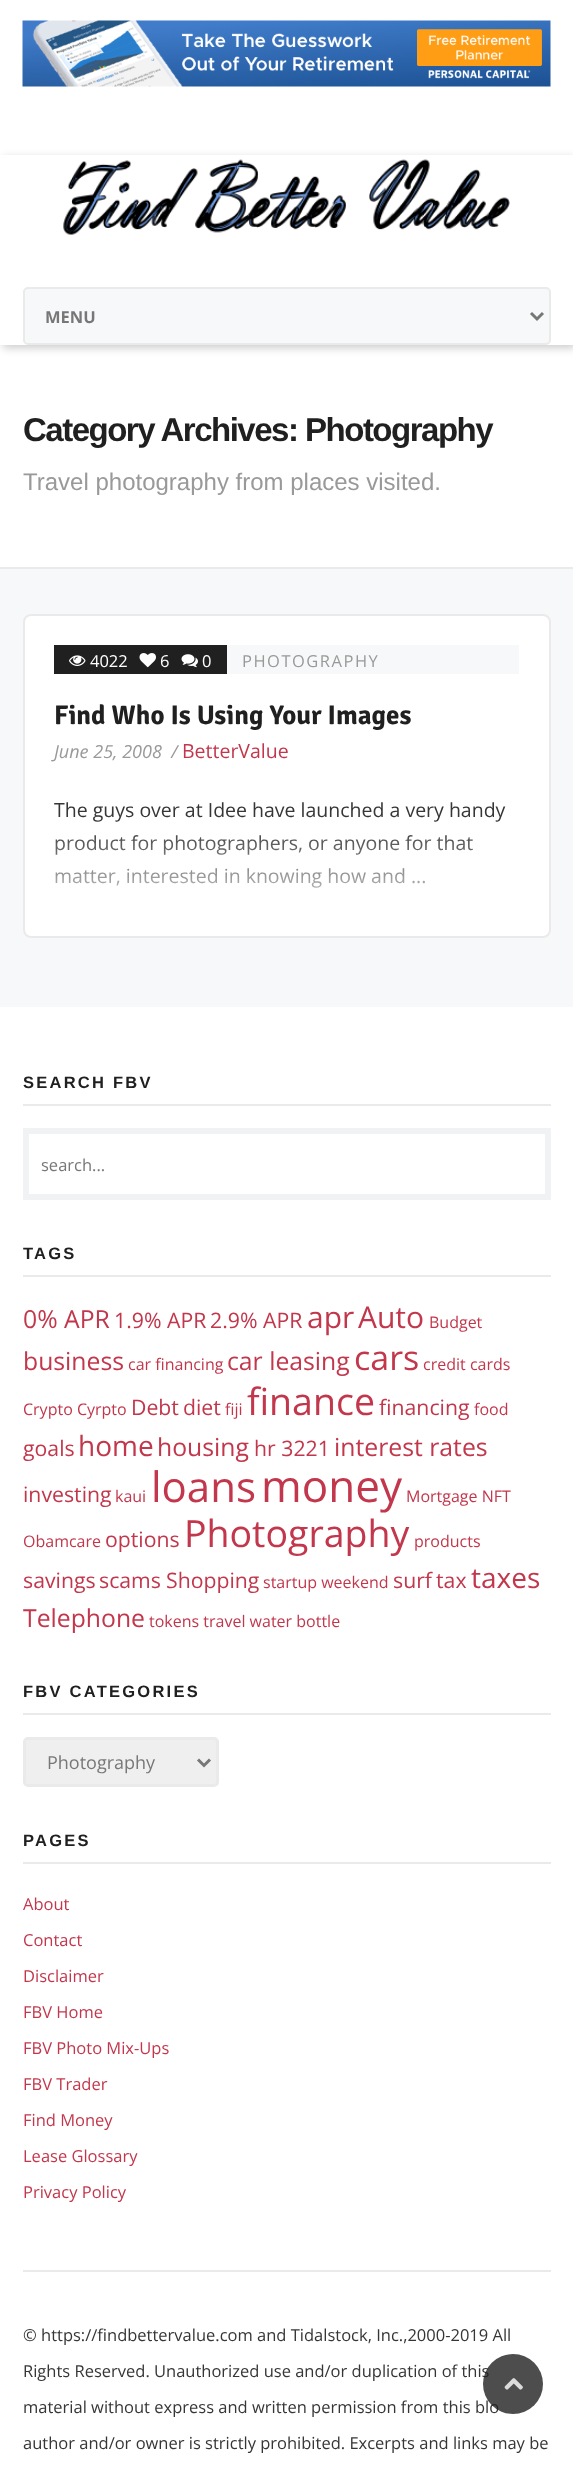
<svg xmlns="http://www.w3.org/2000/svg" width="573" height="2481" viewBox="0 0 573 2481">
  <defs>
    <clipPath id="clip1"><path d="M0 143H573V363H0ZM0 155H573V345H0Z" clip-rule="evenodd"/></clipPath>
    <linearGradient id="g1" gradientUnits="userSpaceOnUse" x1="287" y1="824" x2="287" y2="929"><stop offset="0" stop-color="rgb(255,255,255)" stop-opacity="0"/><stop offset="0.5" stop-color="rgb(255,255,255)" stop-opacity="0.5"/><stop offset="1" stop-color="rgb(255,255,255)"/></linearGradient>
  </defs>
  <rect width="100%" height="100%" fill="rgb(247,248,249)"/>
  <rect x="0" y="0" width="573" height="567" fill="rgb(255,255,255)"/>
  <rect x="0" y="567" width="573" height="2" fill="rgb(235,234,234)"/>
  <image x="22" y="20" width="529" height="67" href="pic1.png"/>
  <g clip-path="url(#clip1)">
    <rect x="3" y="158" width="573" height="190" fill="rgba(0,0,0,0.2)" filter="blur(4.5px)"/>
  </g>
  <image x="63" y="159" width="447" height="76" href="pic2.png"/>
  <rect x="24" y="288" width="526" height="56" rx="4" fill="rgb(247,248,249)" stroke="rgb(235,234,234)" stroke-width="2"/>
  <path d="M531 313L537 319L543 313" fill="none" stroke="rgb(119,119,119)" stroke-width="3"/>
  <text x="45" y="323" font-family="Open Sans" font-size="16.5" font-weight="bold" fill="rgb(119,119,119)">MENU</text>
  <text x="23" y="441" font-family="Liberation Sans" font-size="33" font-weight="bold" letter-spacing="-1.5" fill="rgb(32,32,32)">Category Archives: Photography</text>
  <text x="23" y="490" font-family="Liberation Sans" font-size="24" fill="rgb(153,153,153)">Travel photography from places visited.</text>
  <rect x="24" y="615" width="526" height="322" rx="7" fill="rgb(255,255,255)" stroke="rgb(235,234,234)" stroke-width="2"/>
  <rect x="227" y="645" width="292" height="29" fill="rgb(247,248,249)"/>
  <rect x="54" y="645" width="173" height="29" fill="rgb(32,32,32)"/>
  <image x="69" y="655" width="17" height="11" href="pic3.png"/>
  <text x="90" y="667" font-family="Open Sans" font-size="16.5" fill="rgb(255,255,255)">4022</text>
  <image x="139" y="653" width="17" height="15" href="pic4.png"/>
  <text x="160" y="667" font-family="Open Sans" font-size="16.5" fill="rgb(255,255,255)">6</text>
  <image x="181" y="654" width="17" height="14" href="pic5.png"/>
  <text x="202" y="667" font-family="Open Sans" font-size="16.5" fill="rgb(255,255,255)">0</text>
  <text x="242" y="667" font-family="Open Sans" font-size="16.5" letter-spacing="1.5" fill="rgb(153,153,153)">PHOTOGRAPHY</text>
  <text x="54" y="724" font-family="Signika Negative" font-size="27" font-weight="bold" fill="rgb(32,32,32)">Find Who Is Using Your Images</text>
  <text x="54" y="758" font-family="Open Sans" font-size="18" font-style="italic" fill="rgb(153,153,153)" xml:space="preserve">June 25, 2008  /</text>
  <text x="182" y="758" font-family="Open Sans" font-size="19.5" fill="rgb(194,55,76)">BetterValue</text>
  <g font-family="Open Sans" font-size="19.5" fill="rgb(54,54,54)">
    <text>
      <tspan x="54" y="817">The guys over at Idee have launched a very handy</tspan>
      <tspan x="54" y="850">product for photographers, or anyone for that</tspan>
      <tspan x="54" y="883">matter, interested in knowing how and ...</tspan>
    </text>
  </g>
  <rect x="55" y="835" width="418" height="53" fill="url(#g1)"/>
  <rect x="0" y="1007" width="573" height="1474" fill="rgb(255,255,255)"/>
  <rect x="23" y="1104" width="528" height="2" fill="rgb(235,234,234)"/>
  <text x="23" y="1088" font-family="Liberation Sans" font-size="16.5" font-weight="bold" letter-spacing="2.25" fill="rgb(32,32,32)">SEARCH FBV</text>
  <rect x="26" y="1131" width="522" height="66" fill="none" stroke="rgb(241,242,243)" stroke-width="6"/>
  <text x="41" y="1171" font-family="Open Sans" font-size="16.5" fill="rgb(119,119,119)">search...</text>
  <rect x="23" y="1275" width="528" height="2" fill="rgb(235,234,234)"/>
  <text x="23" y="1259" font-family="Liberation Sans" font-size="16.5" font-weight="bold" letter-spacing="2.25" fill="rgb(32,32,32)">TAGS</text>
  <text x="23" y="1328" font-family="Open Sans" font-size="24.75" fill="rgb(194,55,76)">0% APR</text>
  <g font-family="Open Sans" font-size="21.25" fill="rgb(194,55,76)">
    <text x="114" y="1328">1.9% APR</text>
    <text x="210" y="1328">2.9% APR</text>
  </g>
  <g font-family="Open Sans" font-size="30" fill="rgb(194,55,76)">
    <text x="307" y="1328">apr</text>
    <text x="358" y="1328">Auto</text>
  </g>
  <text x="429" y="1328" font-family="Open Sans" font-size="16" fill="rgb(194,55,76)">Budget</text>
  <text x="23" y="1370" font-family="Open Sans" font-size="24.75" fill="rgb(194,55,76)">business</text>
  <text x="128" y="1370" font-family="Open Sans" font-size="16" fill="rgb(194,55,76)">car financing</text>
  <text x="227" y="1370" font-family="Open Sans" font-size="24.75" fill="rgb(194,55,76)">car leasing</text>
  <text x="354" y="1370" font-family="Open Sans" font-size="34" fill="rgb(194,55,76)">cars</text>
  <g font-family="Open Sans" font-size="16" fill="rgb(194,55,76)">
    <text x="423" y="1370">credit cards</text>
    <text x="23" y="1415">Crypto Cyrpto</text>
  </g>
  <g font-family="Open Sans" font-size="21.25" fill="rgb(194,55,76)">
    <text x="131" y="1415">Debt</text>
    <text x="183" y="1415">diet</text>
  </g>
  <text x="225" y="1415" font-family="Open Sans" font-size="16" fill="rgb(194,55,76)">fiji</text>
  <text x="247" y="1415" font-family="Open Sans" font-size="37.5" fill="rgb(194,55,76)">finance</text>
  <text x="379" y="1415" font-family="Open Sans" font-size="21.25" fill="rgb(194,55,76)">financing</text>
  <text x="474" y="1415" font-family="Open Sans" font-size="16" fill="rgb(194,55,76)">food</text>
  <text x="23" y="1456" font-family="Open Sans" font-size="21.25" fill="rgb(194,55,76)">goals</text>
  <text x="78" y="1456" font-family="Open Sans" font-size="28" fill="rgb(194,55,76)">home</text>
  <text x="157" y="1456" font-family="Open Sans" font-size="24.75" fill="rgb(194,55,76)">housing</text>
  <text x="254" y="1456" font-family="Open Sans" font-size="21.25" fill="rgb(194,55,76)">hr 3221</text>
  <text x="334" y="1456" font-family="Open Sans" font-size="24.75" fill="rgb(194,55,76)">interest rates</text>
  <text x="23" y="1502" font-family="Open Sans" font-size="21.25" fill="rgb(194,55,76)">investing</text>
  <text x="115" y="1502" font-family="Open Sans" font-size="16" fill="rgb(194,55,76)">kaui</text>
  <text x="151" y="1502" font-family="Open Sans" font-size="42" fill="rgb(194,55,76)">loans</text>
  <text x="261" y="1502" font-family="Open Sans" font-size="44" fill="rgb(194,55,76)">money</text>
  <g font-family="Open Sans" font-size="16" fill="rgb(194,55,76)">
    <text x="406" y="1502">Mortgage NFT</text>
    <text x="23" y="1547">Obamcare</text>
  </g>
  <text x="105" y="1547" font-family="Open Sans" font-size="21.25" fill="rgb(194,55,76)">options</text>
  <text x="184" y="1547" font-family="Open Sans" font-size="37.5" fill="rgb(194,55,76)">Photography</text>
  <text x="414" y="1547" font-family="Open Sans" font-size="16" fill="rgb(194,55,76)">products</text>
  <g font-family="Open Sans" font-size="21.25" fill="rgb(194,55,76)">
    <text x="23" y="1588">savings</text>
    <text x="99" y="1588">scams</text>
    <text x="166" y="1588">Shopping</text>
  </g>
  <text x="263" y="1588" font-family="Open Sans" font-size="16" fill="rgb(194,55,76)">startup weekend</text>
  <g font-family="Open Sans" font-size="21.25" fill="rgb(194,55,76)">
    <text x="393" y="1588">surf</text>
    <text x="436" y="1588">tax</text>
  </g>
  <text x="471" y="1588" font-family="Open Sans" font-size="28" fill="rgb(194,55,76)">taxes</text>
  <text x="23" y="1627" font-family="Open Sans" font-size="24.75" fill="rgb(194,55,76)">Telephone</text>
  <text x="149" y="1627" font-family="Open Sans" font-size="16" fill="rgb(194,55,76)">tokens travel water bottle</text>
  <rect x="23" y="1713" width="528" height="2" fill="rgb(235,234,234)"/>
  <text x="23" y="1697" font-family="Liberation Sans" font-size="16.5" font-weight="bold" letter-spacing="2.25" fill="rgb(32,32,32)">FBV CATEGORIES</text>
  <rect x="24.5" y="1738.5" width="193" height="47" rx="3.5" fill="rgb(239,239,239)" stroke="rgb(235,234,234)" stroke-width="3"/>
  <path d="M198 1759.5L204 1765.5L210 1759.5" fill="none" stroke="rgb(119,119,119)" stroke-width="3"/>
  <text x="47" y="1769" font-family="Open Sans" font-size="18" fill="rgb(119,119,119)">Photography</text>
  <rect x="23" y="1862" width="528" height="2" fill="rgb(235,234,234)"/>
  <text x="23" y="1846" font-family="Liberation Sans" font-size="16.5" font-weight="bold" letter-spacing="2.25" fill="rgb(32,32,32)">PAGES</text>
  <g font-family="Open Sans" font-size="16.5" fill="rgb(194,55,76)">
    <text x="23" y="1910">About</text>
    <text x="23" y="1946">Contact</text>
    <text x="23" y="1982">Disclaimer</text>
    <text x="23" y="2018">FBV Home</text>
    <text x="23" y="2054">FBV Photo Mix-Ups</text>
    <text x="23" y="2090">FBV Trader</text>
    <text x="23" y="2126">Find Money</text>
    <text x="23" y="2162">Lease Glossary</text>
    <text x="23" y="2198">Privacy Policy</text>
  </g>
  <rect x="23" y="2270" width="528" height="2" fill="rgb(235,234,234)"/>
  <g font-family="Open Sans" font-size="16.5" fill="rgb(54,54,54)">
    <text x="23" y="2341">© https://findbettervalue.com and Tidalstock, Inc.,2000-2019 All</text>
    <text x="23" y="2377">Rights Reserved. Unauthorized use and/or duplication of this</text>
    <text x="23" y="2413">material without express and written permission from this blo</text>
    <text x="23" y="2449">author and/or owner is strictly prohibited. Excerpts and links may be</text>
  </g>
  <circle cx="513" cy="2384" r="30" fill="rgba(32,32,32,0.8)"/>
  <image x="504" y="2378" width="19" height="12" href="pic6.png"/>
</svg>
